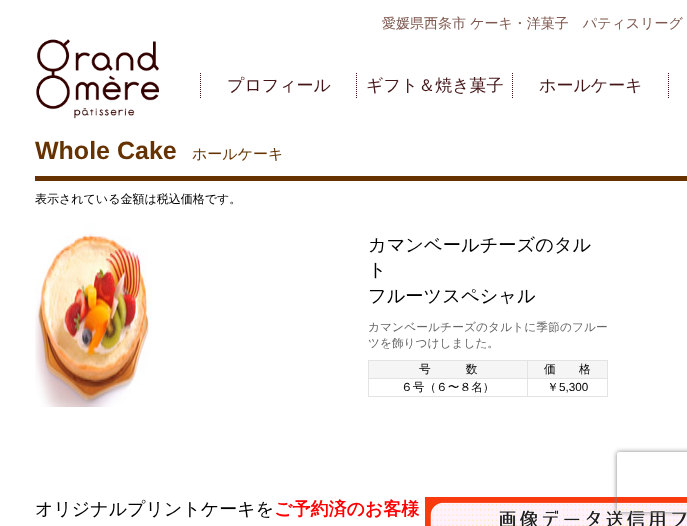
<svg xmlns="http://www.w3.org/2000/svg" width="687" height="526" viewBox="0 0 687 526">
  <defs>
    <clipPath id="clip1"><path d="M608 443H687V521H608ZM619 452H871C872 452 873 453 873 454V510C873 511 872 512 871 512H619C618 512 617 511 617 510V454C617 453 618 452 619 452Z" clip-rule="evenodd"/></clipPath>
  </defs>
  <rect width="100%" height="100%" fill="rgb(255,255,255)"/>
  <text x="382" y="28" font-family="WenQuanYi Zen Hei" font-size="14" font-weight="500" fill="rgb(126,88,78)">愛媛県西条市 ケーキ・洋菓子　パティスリーグ</text>
  <image x="36" y="39" width="123" height="80" href="pic1.png"/>
  <path d="M200.5 73V98" fill="none" stroke="rgb(67,21,23)" stroke-dasharray="1 1"/>
  <text x="227" y="91" font-family="WenQuanYi Zen Hei" font-size="17" font-weight="500" fill="rgb(67,21,23)">プロフィール</text>
  <path d="M356.5 73V98" fill="none" stroke="rgb(67,21,23)" stroke-dasharray="1 1"/>
  <text x="366" y="91" font-family="WenQuanYi Zen Hei" font-size="17" font-weight="500" fill="rgb(67,21,23)">ギフト＆焼き菓子</text>
  <path d="M512.5 73V98" fill="none" stroke="rgb(67,21,23)" stroke-dasharray="1 1"/>
  <text x="539" y="91" font-family="WenQuanYi Zen Hei" font-size="17" font-weight="500" fill="rgb(67,21,23)">ホールケーキ</text>
  <path d="M668.5 73V98" fill="none" stroke="rgb(67,21,23)" stroke-dasharray="1 1"/>
  <rect x="35" y="176" width="652" height="5" fill="rgb(102,51,0)"/>
  <text x="35" y="159" font-family="Liberation Sans" font-size="25" font-weight="bold" fill="rgb(102,51,0)">Whole Cake</text>
  <text x="192" y="159" font-family="WenQuanYi Zen Hei" font-size="15" font-weight="500" fill="rgb(102,51,0)">ホールケーキ</text>
  <text x="35" y="203" font-family="WenQuanYi Zen Hei" font-size="12" font-weight="500" fill="rgb(0,0,0)">表示されている金額は税込価格です。</text>
  <image x="35" y="223" width="116" height="184" href="pic2.png"/>
  <g font-family="WenQuanYi Zen Hei" font-size="18.25" font-weight="500" fill="rgb(0,0,0)">
    <text>
      <tspan x="368" y="251">カマンベールチーズのタル</tspan>
      <tspan x="368" y="276">ト</tspan>
      <tspan x="368" y="302">フルーツスペシャル</tspan>
    </text>
  </g>
  <text x="368" y="331" font-family="WenQuanYi Zen Hei" font-size="11.7" font-weight="500" letter-spacing="0.1" fill="rgb(102,102,102)">カマンベールチーズのタルトに季節のフルー</text>
  <text x="368" y="347" font-family="WenQuanYi Zen Hei" font-size="11.7" font-weight="500" fill="rgb(102,102,102)">ツを飾りつけしました。</text>
  <rect x="368" y="360" width="240" height="1" fill="rgb(227,227,227)"/>
  <rect x="607" y="360" width="1" height="37" fill="rgb(227,227,227)"/>
  <rect x="368" y="396" width="240" height="1" fill="rgb(227,227,227)"/>
  <rect x="368" y="360" width="1" height="37" fill="rgb(227,227,227)"/>
  <rect x="369" y="361" width="158" height="17" fill="rgb(245,245,245)"/>
  <text x="419" y="373" font-family="WenQuanYi Zen Hei" font-size="11.7" font-weight="500" fill="rgb(0,0,0)">号　　　数</text>
  <rect x="528" y="361" width="79" height="17" fill="rgb(245,245,245)"/>
  <rect x="527" y="378" width="81" height="1" fill="rgb(227,227,227)"/>
  <rect x="527" y="378" width="1" height="19" fill="rgb(227,227,227)"/>
  <rect x="368" y="378" width="160" height="1" fill="rgb(227,227,227)"/>
  <rect x="527" y="360" width="1" height="19" fill="rgb(227,227,227)"/>
  <g font-family="WenQuanYi Zen Hei" font-size="11.7" font-weight="500" fill="rgb(0,0,0)">
    <text x="544" y="373">価　　格</text>
    <text x="401" y="391">６号（６〜８名）</text>
    <text x="547" y="391">￥</text>
  </g>
  <text x="559" y="391" font-family="Liberation Sans" font-size="11.7" fill="rgb(0,0,0)">5,300</text>
  <text x="35" y="515" font-family="WenQuanYi Zen Hei" font-size="18" font-weight="500" fill="rgb(0,0,0)">オリジナルプリントケーキを</text>
  <text x="274" y="515" font-family="WenQuanYi Zen Hei" font-size="18" font-weight="bold" fill="rgb(255,0,0)">ご予約済のお客様</text>
  <image x="425" y="497" width="262" height="29" href="pic3.png"/>
  <g clip-path="url(#clip1)">
    <rect x="617" y="452" width="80" height="60" rx="2" fill="rgb(128,128,128)" filter="blur(2.5px)"/>
  </g>
</svg>
